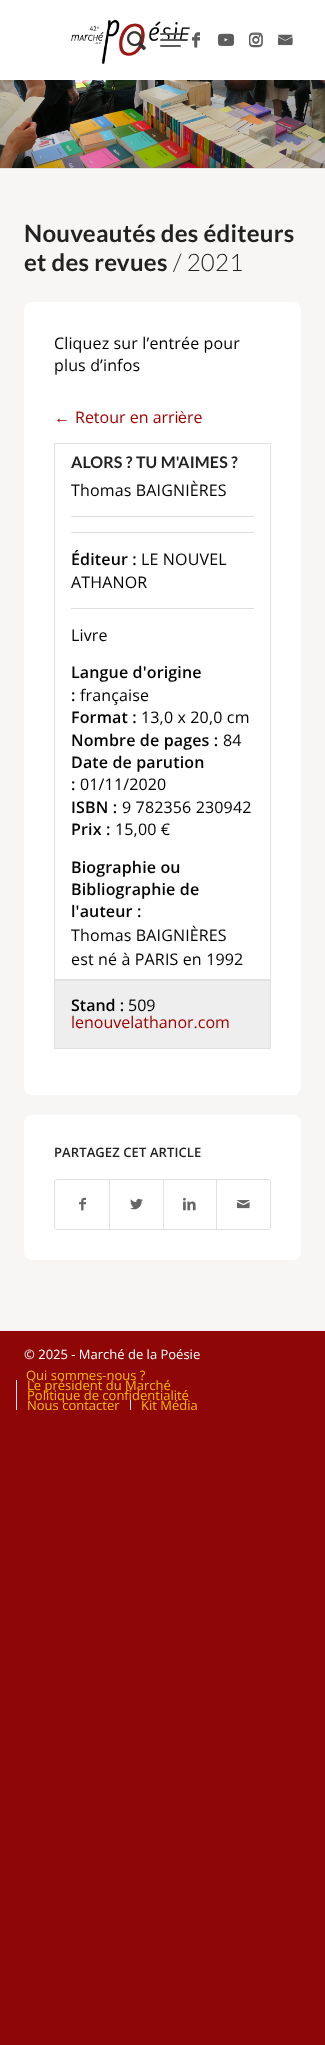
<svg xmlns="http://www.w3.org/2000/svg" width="325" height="2045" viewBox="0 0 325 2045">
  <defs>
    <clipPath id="clip1"><rect x="9" y="1364" width="277" height="46"/></clipPath>
  </defs>
  <rect width="100%" height="100%" fill="rgb(143,6,6)"/>
  <rect x="0" y="0" width="325" height="80" fill="rgb(255,255,255)"/>
  <image x="71" y="19" width="119" height="45" href="pic1.png"/>
  <image x="127" y="31" width="19" height="20" href="pic2.png"/>
  <rect x="160" y="39" width="21" height="2" rx="1" fill="rgb(94,93,94)"/>
  <rect x="160" y="33" width="21" height="2" rx="1" fill="rgb(94,93,94)"/>
  <rect x="160" y="45" width="21" height="2" rx="1" fill="rgb(94,93,94)"/>
  <image x="192" y="33" width="8" height="15" href="pic3.png"/>
  <image x="218" y="35" width="16" height="11" href="pic4.png"/>
  <image x="249" y="33" width="14" height="15" href="pic5.png"/>
  <image x="278" y="35" width="15" height="11" href="pic6.png"/>
  <image x="192" y="32" width="8" height="15" href="pic7.png"/>
  <image x="218" y="33" width="16" height="12" href="pic8.png"/>
  <image x="249" y="32" width="14" height="14" href="pic9.png"/>
  <image x="278" y="34" width="15" height="10" href="pic10.png"/>
  <image x="0" y="80" width="325" height="88" href="pic11.png"/>
  <rect x="0" y="169" width="325" height="1161" fill="rgb(247,246,245)"/>
  <rect x="0" y="168" width="325" height="1" fill="rgb(225,225,225)"/>
  <g font-family="Lato" font-size="24" font-weight="bold" letter-spacing="0.25" fill="rgb(34,34,34)">
    <text>
      <tspan x="24" y="242">Nouveautés des éditeurs</tspan>
      <tspan x="24" y="271">et des revues</tspan>
    </text>
  </g>
  <text x="173" y="271" font-family="Lato" font-size="24" font-weight="300" letter-spacing="0.25" fill="rgb(34,34,34)">/ 2021</text>
  <rect x="24" y="302" width="277" height="793" rx="8" fill="rgb(255,255,255)"/>
  <g font-family="Open Sans" font-size="16" letter-spacing="0.15" fill="rgb(0,0,0)">
    <text>
      <tspan x="54" y="349">Cliquez sur l’entrée pour</tspan>
      <tspan x="54" y="371">plus d’infos</tspan>
    </text>
  </g>
  <text x="54" y="423" font-family="Liberation Sans" font-size="16" fill="rgb(163,0,0)">←</text>
  <text x="75" y="423" font-family="Open Sans" font-size="16" fill="rgb(163,0,0)">Retour en arri</text>
  <text x="178" y="423" font-family="Liberation Sans" font-size="16" fill="rgb(163,0,0)">è</text>
  <text x="187" y="423" font-family="Open Sans" font-size="16" fill="rgb(163,0,0)">re</text>
  <rect x="54.5" y="443.5" width="216" height="605" fill="none" stroke="rgb(225,225,225)"/>
  <rect x="55" y="979" width="215" height="2" fill="rgb(225,225,225)"/>
  <text x="71" y="468" font-family="Lato" font-size="16" font-weight="bold" letter-spacing="0.15" fill="rgb(34,34,34)">ALORS ? TU M'AIMES ?</text>
  <text x="71" y="496" font-family="Open Sans" font-size="16" letter-spacing="0.15" fill="rgb(0,0,0)">Thomas BAIGNIÈRES</text>
  <rect x="71" y="516" width="183" height="1" fill="rgb(221,221,221)"/>
  <rect x="71" y="532" width="183" height="1" fill="rgb(221,221,221)"/>
  <text x="71" y="565" font-family="Open Sans" font-size="16" font-weight="600" letter-spacing="0.15" fill="rgb(0,0,0)">Éditeur :</text>
  <g font-family="Open Sans" font-size="16" letter-spacing="0.15" fill="rgb(0,0,0)">
    <text x="141" y="565">LE NOUVEL</text>
    <text x="71" y="588">ATHANOR</text>
  </g>
  <rect x="71" y="608" width="183" height="1" fill="rgb(221,221,221)"/>
  <text x="71" y="641" font-family="Open Sans" font-size="16" letter-spacing="0.15" fill="rgb(0,0,0)">Livre</text>
  <g font-family="Open Sans" font-size="16" font-weight="600" letter-spacing="0.15" fill="rgb(0,0,0)">
    <text>
      <tspan x="71" y="678">Langue d'origine</tspan>
      <tspan x="71" y="701">:</tspan>
    </text>
  </g>
  <text x="80" y="701" font-family="Open Sans" font-size="16" letter-spacing="0.15" fill="rgb(0,0,0)">française</text>
  <text x="71" y="723" font-family="Open Sans" font-size="16" font-weight="600" letter-spacing="0.15" fill="rgb(0,0,0)">Format :</text>
  <text x="141" y="723" font-family="Open Sans" font-size="16" letter-spacing="0.15" fill="rgb(0,0,0)">13,0 x 20,0 cm</text>
  <text x="71" y="746" font-family="Open Sans" font-size="16" font-weight="600" letter-spacing="0.15" fill="rgb(0,0,0)">Nombre de pages :</text>
  <text x="223" y="746" font-family="Open Sans" font-size="16" letter-spacing="0.15" fill="rgb(0,0,0)">84</text>
  <g font-family="Open Sans" font-size="16" font-weight="600" letter-spacing="0.15" fill="rgb(0,0,0)">
    <text>
      <tspan x="71" y="768">Date de parution</tspan>
      <tspan x="71" y="790">:</tspan>
    </text>
  </g>
  <text x="80" y="790" font-family="Open Sans" font-size="16" letter-spacing="0.15" fill="rgb(0,0,0)">01/11/2020</text>
  <text x="71" y="813" font-family="Open Sans" font-size="16" font-weight="600" letter-spacing="0.15" fill="rgb(0,0,0)">ISBN :</text>
  <text x="122" y="813" font-family="Open Sans" font-size="16" letter-spacing="0.15" fill="rgb(0,0,0)">9 782356 230942</text>
  <text x="71" y="835" font-family="Open Sans" font-size="16" font-weight="600" letter-spacing="0.15" fill="rgb(0,0,0)">Prix :</text>
  <text x="115" y="835" font-family="Open Sans" font-size="16" letter-spacing="0.15" fill="rgb(0,0,0)">15,00 €</text>
  <g font-family="Open Sans" font-size="16" font-weight="600" letter-spacing="0.15" fill="rgb(0,0,0)">
    <text>
      <tspan x="71" y="873">Biographie ou</tspan>
      <tspan x="71" y="895">Bibliographie de</tspan>
      <tspan x="71" y="917">l'auteur :</tspan>
    </text>
  </g>
  <g font-family="Open Sans" font-size="16" letter-spacing="0.15" fill="rgb(0,0,0)">
    <text>
      <tspan x="71" y="941">Thomas BAIGNIÈRES</tspan>
      <tspan x="71" y="965">est né à PARIS en 1992</tspan>
    </text>
  </g>
  <rect x="55" y="981" width="215" height="67" fill="rgb(238,238,238)"/>
  <text x="71" y="1011" font-family="Open Sans" font-size="16" font-weight="600" fill="rgb(0,0,0)">Stand :</text>
  <text x="128" y="1011" font-family="Open Sans" font-size="16" fill="rgb(0,0,0)">509</text>
  <text x="71" y="1028" font-family="Open Sans" font-size="16" fill="rgb(163,0,0)">lenouvelathanor.com</text>
  <rect x="24" y="1115" width="277" height="145" rx="8" fill="rgb(255,255,255)"/>
  <text x="54" y="1157" font-family="Open Sans" font-size="13" font-weight="600" letter-spacing="0.1" fill="rgb(34,34,34)">PARTAGEZ CET ARTICLE</text>
  <rect x="54.5" y="1179.5" width="216" height="50" rx="2.5" fill="none" stroke="rgb(225,225,225)"/>
  <image x="79" y="1197" width="7" height="14" href="pic12.png"/>
  <rect x="109" y="1180" width="1" height="49" fill="rgb(225,225,225)"/>
  <image x="130" y="1198" width="13" height="12" href="pic13.png"/>
  <rect x="163" y="1180" width="1" height="49" fill="rgb(225,225,225)"/>
  <image x="183" y="1197" width="13" height="14" href="pic14.png"/>
  <rect x="216" y="1180" width="1" height="49" fill="rgb(225,225,225)"/>
  <image x="237" y="1200" width="13" height="9" href="pic15.png"/>
  <rect x="0" y="1330" width="325" height="1" fill="rgb(238,238,238)"/>
  <text x="24" y="1359" font-family="Open Sans" font-size="13" fill="rgb(255,255,255)">© 2025 - Marché de la Poésie</text>
  <text x="26" y="1380" font-family="Open Sans" font-size="13" fill="rgb(250,188,0)">Qui sommes-nous ?</text>
  <rect x="16" y="1380" width="1" height="30" fill="rgb(238,238,238)"/>
  <g font-family="Open Sans" font-size="13" fill="rgb(250,188,0)">
    <text>
      <tspan x="27" y="1390">Le président du Marché</tspan>
      <tspan x="27" y="1400">Politique de confidentialité</tspan>
    </text>
  </g>
  <g clip-path="url(#clip1)">
    <text x="27" y="1410" font-family="Open Sans" font-size="13" fill="rgb(250,188,0)">Nous contacter</text>
  </g>
  <rect x="130" y="1400" width="1" height="10" fill="rgb(238,238,238)"/>
  <g clip-path="url(#clip1)">
    <text x="141" y="1410" font-family="Open Sans" font-size="13" fill="rgb(250,188,0)">Kit Média</text>
  </g>
</svg>
